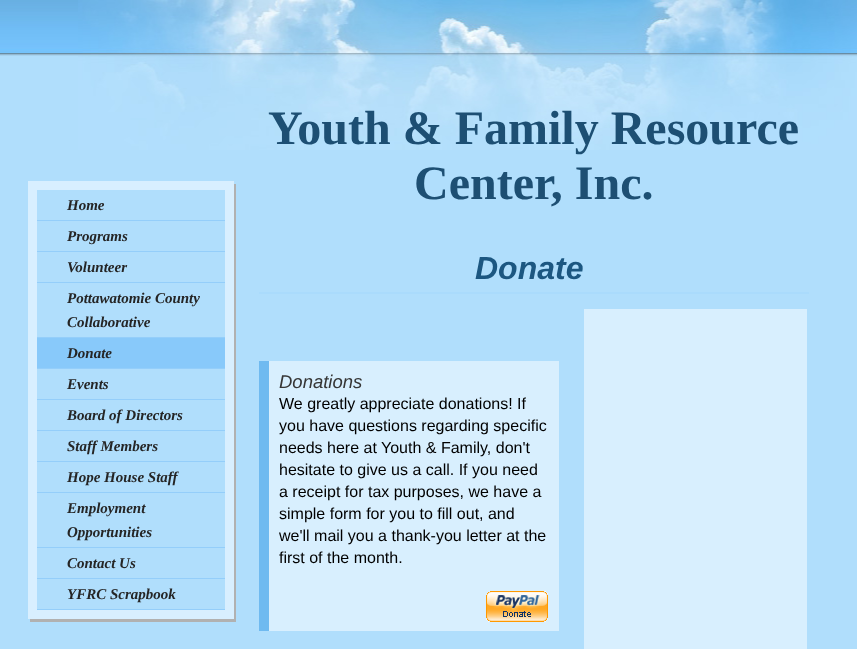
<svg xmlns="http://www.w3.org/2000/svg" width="857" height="649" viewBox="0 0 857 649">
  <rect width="100%" height="100%" fill="rgb(176,222,252)"/>
  <image x="0" y="0" width="78" height="56" href="pic1.png"/>
  <image x="78" y="0" width="779" height="150" href="pic2.png"/>
  <g font-family="Liberation Serif" font-size="48" font-weight="bold" fill="rgb(29,79,115)">
    <text x="268" y="144">Youth &amp; Family Resource</text>
    <text x="414" y="199">Center, Inc.</text>
  </g>
  <rect x="30" y="184" width="206" height="438" fill="rgb(177,177,177)"/>
  <rect x="37" y="190" width="188" height="419" fill="rgb(176,222,252)"/>
  <rect x="32.5" y="185.5" width="197" height="429" fill="none" stroke="rgb(216,239,255)" stroke-width="9"/>
  <rect x="37" y="220" width="188" height="1" fill="rgb(148,206,250)"/>
  <text x="67" y="210" font-family="Liberation Serif" font-size="15" font-weight="bold" font-style="italic" fill="rgb(37,37,37)">Home</text>
  <rect x="37" y="251" width="188" height="1" fill="rgb(148,206,250)"/>
  <text x="67" y="241" font-family="Liberation Serif" font-size="15" font-weight="bold" font-style="italic" fill="rgb(37,37,37)">Programs</text>
  <rect x="37" y="282" width="188" height="1" fill="rgb(148,206,250)"/>
  <text x="67" y="272" font-family="Liberation Serif" font-size="15" font-weight="bold" font-style="italic" fill="rgb(37,37,37)">Volunteer</text>
  <rect x="37" y="337" width="188" height="1" fill="rgb(148,206,250)"/>
  <g font-family="Liberation Serif" font-size="15" font-weight="bold" font-style="italic" fill="rgb(37,37,37)">
    <text>
      <tspan x="67" y="303">Pottawatomie County</tspan>
      <tspan x="67" y="327">Collaborative</tspan>
    </text>
  </g>
  <rect x="37" y="338" width="188" height="30" fill="rgb(136,201,250)"/>
  <rect x="37" y="368" width="188" height="1" fill="rgb(148,206,250)"/>
  <text x="67" y="358" font-family="Liberation Serif" font-size="15" font-weight="bold" font-style="italic" fill="rgb(37,37,37)">Donate</text>
  <rect x="37" y="399" width="188" height="1" fill="rgb(148,206,250)"/>
  <text x="67" y="389" font-family="Liberation Serif" font-size="15" font-weight="bold" font-style="italic" fill="rgb(37,37,37)">Events</text>
  <rect x="37" y="430" width="188" height="1" fill="rgb(148,206,250)"/>
  <text x="67" y="420" font-family="Liberation Serif" font-size="15" font-weight="bold" font-style="italic" fill="rgb(37,37,37)">Board of Directors</text>
  <rect x="37" y="461" width="188" height="1" fill="rgb(148,206,250)"/>
  <text x="67" y="451" font-family="Liberation Serif" font-size="15" font-weight="bold" font-style="italic" fill="rgb(37,37,37)">Staff Members</text>
  <rect x="37" y="492" width="188" height="1" fill="rgb(148,206,250)"/>
  <text x="67" y="482" font-family="Liberation Serif" font-size="15" font-weight="bold" font-style="italic" fill="rgb(37,37,37)">Hope House Staff</text>
  <rect x="37" y="547" width="188" height="1" fill="rgb(148,206,250)"/>
  <g font-family="Liberation Serif" font-size="15" font-weight="bold" font-style="italic" fill="rgb(37,37,37)">
    <text>
      <tspan x="67" y="513">Employment</tspan>
      <tspan x="67" y="537">Opportunities</tspan>
    </text>
  </g>
  <rect x="37" y="578" width="188" height="1" fill="rgb(148,206,250)"/>
  <text x="67" y="568" font-family="Liberation Serif" font-size="15" font-weight="bold" font-style="italic" fill="rgb(37,37,37)">Contact Us</text>
  <rect x="37" y="609" width="188" height="1" fill="rgb(148,206,250)"/>
  <text x="67" y="599" font-family="Liberation Serif" font-size="15" font-weight="bold" font-style="italic" fill="rgb(37,37,37)">YFRC Scrapbook</text>
  <rect x="259" y="292" width="550" height="2" fill="rgb(170,219,252)"/>
  <text x="475" y="279" font-family="Liberation Sans" font-size="32" font-weight="bold" font-style="italic" fill="rgb(28,87,129)">Donate</text>
  <rect x="269" y="361" width="290" height="270" fill="rgb(216,239,254)"/>
  <rect x="259" y="361" width="10" height="270" fill="rgb(111,186,240)"/>
  <text x="279" y="388" font-family="Liberation Sans" font-size="18.5" font-style="italic" fill="rgb(54,54,54)">Donations</text>
  <g font-family="Liberation Sans" font-size="16" fill="rgb(0,0,0)">
    <text>
      <tspan x="279" y="409">We greatly appreciate donations! If</tspan>
      <tspan x="279" y="431">you have questions regarding specific</tspan>
      <tspan x="279" y="453">needs here at Youth &amp; Family, don't</tspan>
      <tspan x="279" y="475">hesitate to give us a call. If you need</tspan>
      <tspan x="279" y="497">a receipt for tax purposes, we have a</tspan>
      <tspan x="279" y="519">simple form for you to fill out, and</tspan>
      <tspan x="279" y="541">we'll mail you a thank-you letter at the</tspan>
      <tspan x="279" y="563">first of the month.</tspan>
    </text>
  </g>
  <image x="486" y="591" width="62" height="31" href="pic3.png"/>
  <rect x="584" y="309" width="223" height="340" fill="rgb(216,239,254)"/>
</svg>
